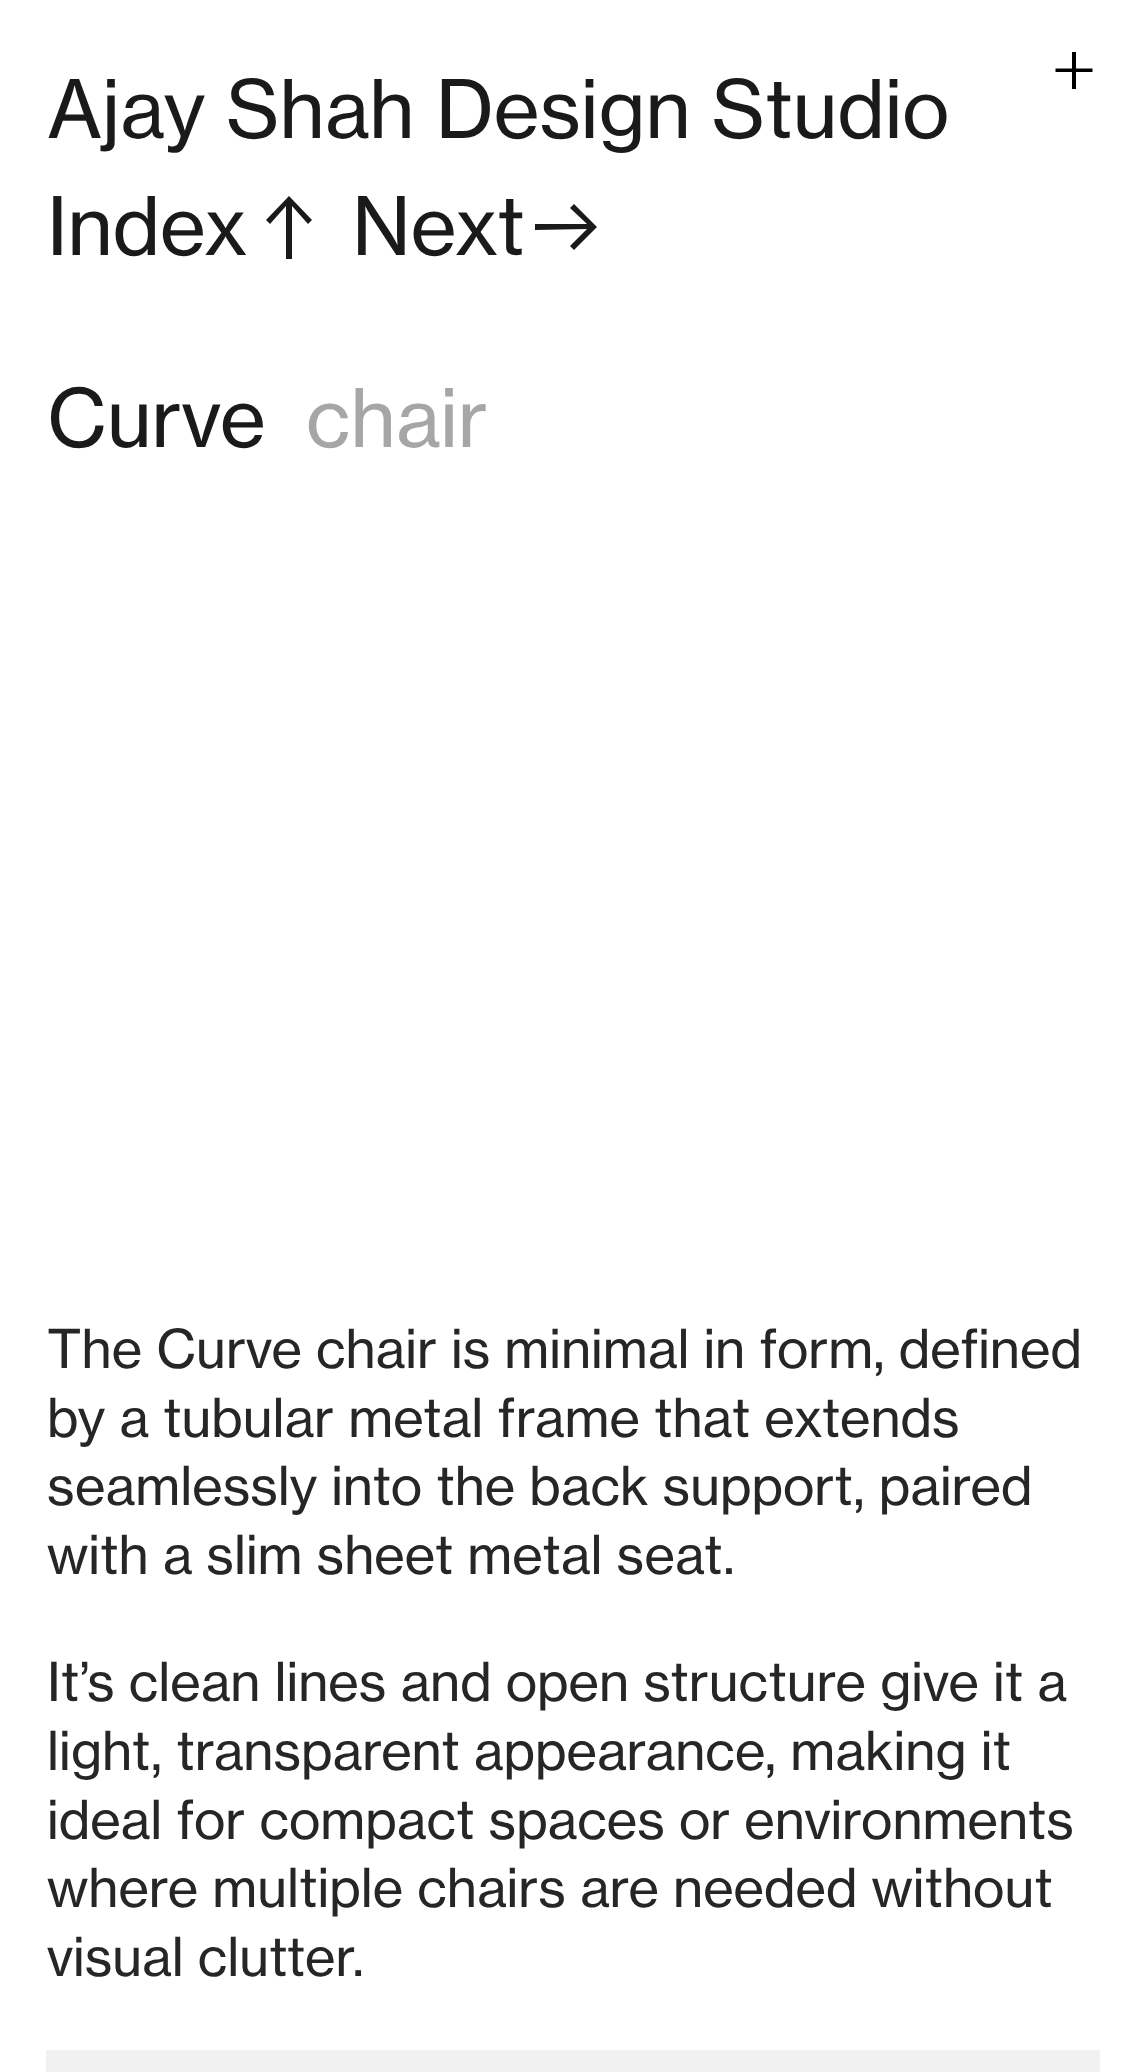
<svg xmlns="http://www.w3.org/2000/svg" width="1145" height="2072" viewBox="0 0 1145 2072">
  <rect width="100%" height="100%" fill="rgb(255,255,255)"/>
  <path d="M1076 68.5V52H1072V68.5H1055.5V72H1072V89H1076V72H1092.5V68.5Z" fill="rgb(0,0,0)"/>
  <g font-family="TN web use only" font-size="79.25" fill="rgb(26,26,26)">
    <text>
      <tspan x="47" y="138">Ajay Shah Design Studio</tspan>
      <tspan x="47" y="255">Index</tspan>
    </text>
  </g>
  <path d="M292 259V206L308 224L312 220L289 196L266 220L270 224L286 206V259Z" fill="rgb(26,26,26)"/>
  <text x="352" y="255" font-family="TN web use only" font-size="79.25" fill="rgb(26,26,26)">Next</text>
  <path d="M535 230L587 229L570 246L574 250L597 227L574 204L570 208L587 224H535Z" fill="rgb(26,26,26)"/>
  <text x="47" y="447" font-family="TN web use only" font-size="79.25" fill="rgb(26,26,26)">Curve</text>
  <text x="306" y="447" font-family="TN web use only" font-size="79.25" fill="rgb(166,166,166)">chair</text>
  <g font-family="TN web use only" font-size="52.8" fill="rgb(38,38,38)">
    <text>
      <tspan x="47" y="1368">The Curve chair is minimal in form, defined</tspan>
      <tspan x="47" y="1437">by a tubular metal frame that extends</tspan>
      <tspan x="47" y="1505">seamlessly into the back support, paired</tspan>
      <tspan x="47" y="1574">with a slim sheet metal seat.</tspan>
    </text>
    <text>
      <tspan x="47" y="1701">It’s clean lines and open structure give it a</tspan>
      <tspan x="47" y="1770">light, transparent appearance, making it</tspan>
      <tspan x="47" y="1839">ideal for compact spaces or environments</tspan>
      <tspan x="47" y="1907">where multiple chairs are needed without</tspan>
      <tspan x="47" y="1976">visual clutter.</tspan>
    </text>
  </g>
  <rect x="46" y="2050" width="1054" height="22" fill="rgb(241,241,241)"/>
</svg>
